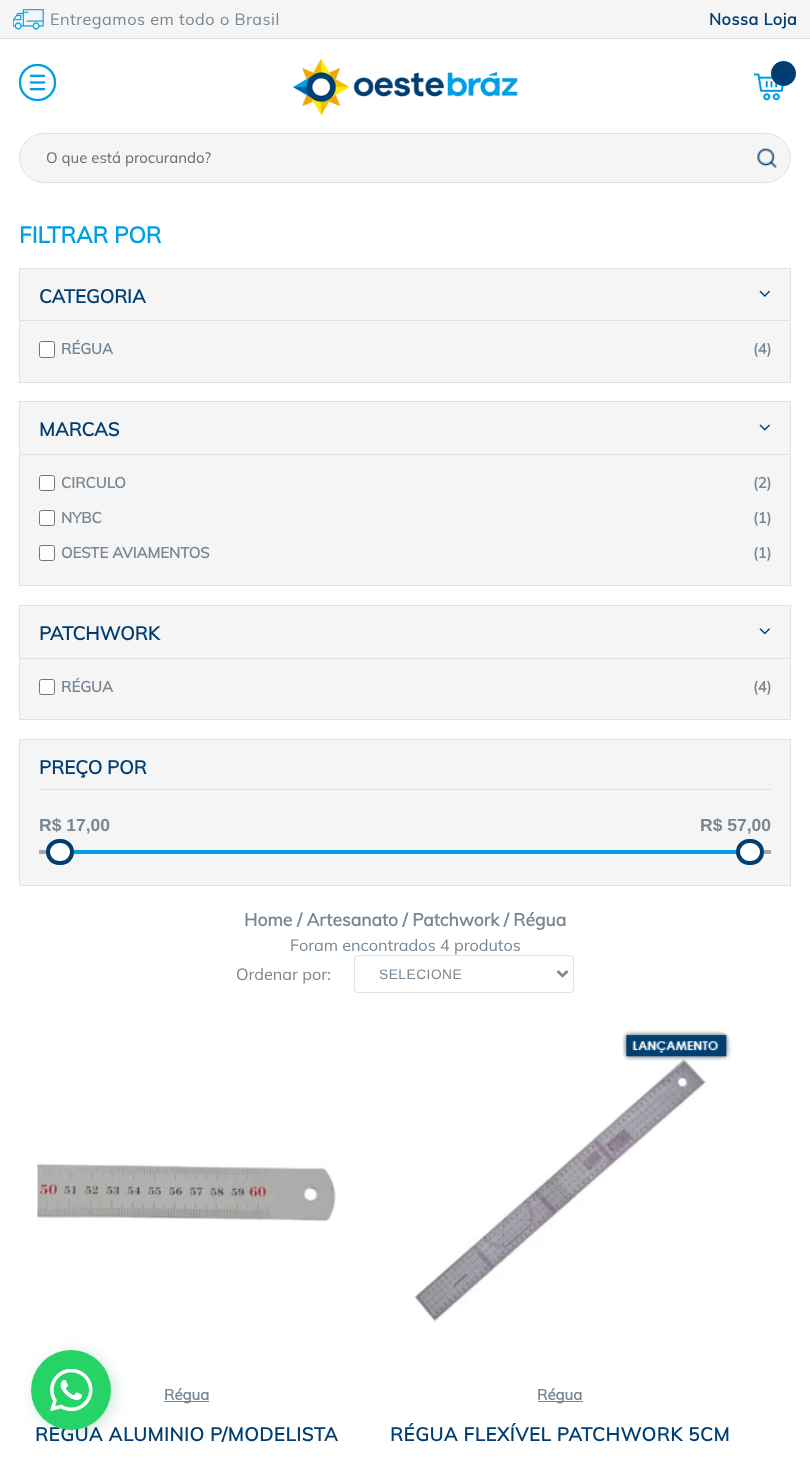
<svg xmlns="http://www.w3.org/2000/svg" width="810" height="1461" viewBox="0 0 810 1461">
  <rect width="100%" height="100%" fill="rgb(255,255,255)"/>
  <rect x="0" y="0" width="810" height="38" fill="rgb(245,245,245)"/>
  <rect x="0" y="38" width="810" height="1" fill="rgb(225,225,225)"/>
  <image x="13" y="9" width="31" height="21" href="pic1.png"/>
  <text x="50" y="25" font-family="Muli" font-size="16.25" letter-spacing="0.5" fill="rgb(119,135,148)">Entregamos em todo o Brasil</text>
  <text x="709" y="25" font-family="Muli" font-size="16.25" font-weight="bold" letter-spacing="0.5" fill="rgb(0,62,113)">Nossa Loja</text>
  <image x="19" y="64" width="37" height="37" href="pic2.png"/>
  <image x="292" y="58" width="226" height="57" href="pic3.png"/>
  <image x="754" y="73" width="30" height="28" href="pic4.png"/>
  <circle cx="783.5" cy="73.5" r="12.5" fill="rgb(0,62,113)"/>
  <rect x="19.5" y="133.5" width="771" height="49" rx="24.5" fill="rgb(245,245,245)" stroke="rgb(225,225,225)"/>
  <text x="46" y="163" font-family="Muli" font-size="15" fill="rgb(109,109,95)">O que está procurando?</text>
  <image x="757" y="148" width="20" height="20" href="pic5.png"/>
  <text x="19" y="243" font-family="Muli" font-size="22.5" font-weight="bold" fill="rgb(0,159,229)">FILTRAR POR</text>
  <rect x="19.5" y="268.5" width="771" height="114" fill="rgb(245,245,245)" stroke="rgb(225,225,225)"/>
  <rect x="20" y="320" width="770" height="1" fill="rgb(225,225,225)"/>
  <text x="39" y="303" font-family="Muli" font-size="18.75" font-weight="bold" fill="rgb(0,62,113)">CATEGORIA</text>
  <image x="759" y="290" width="11" height="7" href="pic6.png"/>
  <rect x="39.5" y="341.5" width="15" height="16" rx="2" fill="rgb(255,255,255)" stroke="rgb(118,118,118)"/>
  <g font-family="Muli" font-size="15" font-weight="bold" fill="rgb(119,135,148)">
    <text x="61" y="354">RÉGUA</text>
    <text x="753" y="354">(4)</text>
  </g>
  <rect x="19.5" y="401.5" width="771" height="184" fill="rgb(245,245,245)" stroke="rgb(225,225,225)"/>
  <rect x="20" y="454" width="770" height="1" fill="rgb(225,225,225)"/>
  <text x="39" y="436" font-family="Muli" font-size="18.75" font-weight="bold" fill="rgb(0,62,113)">MARCAS</text>
  <image x="759" y="424" width="11" height="7" href="pic7.png"/>
  <rect x="39.5" y="475.5" width="15" height="15" rx="2" fill="rgb(255,255,255)" stroke="rgb(118,118,118)"/>
  <g font-family="Muli" font-size="15" font-weight="bold" fill="rgb(119,135,148)">
    <text x="61" y="488">CIRCULO</text>
    <text x="753" y="488">(2)</text>
  </g>
  <rect x="39.5" y="510.5" width="15" height="15" rx="2" fill="rgb(255,255,255)" stroke="rgb(118,118,118)"/>
  <g font-family="Muli" font-size="15" font-weight="bold" fill="rgb(119,135,148)">
    <text x="61" y="523">NYBC</text>
    <text x="753" y="523">(1)</text>
  </g>
  <rect x="39.5" y="545.5" width="15" height="15" rx="2" fill="rgb(255,255,255)" stroke="rgb(118,118,118)"/>
  <g font-family="Muli" font-size="15" font-weight="bold" fill="rgb(119,135,148)">
    <text x="61" y="558">OESTE AVIAMENTOS</text>
    <text x="753" y="558">(1)</text>
  </g>
  <rect x="19.5" y="605.5" width="771" height="114" fill="rgb(245,245,245)" stroke="rgb(225,225,225)"/>
  <rect x="20" y="658" width="770" height="1" fill="rgb(225,225,225)"/>
  <text x="39" y="640" font-family="Muli" font-size="18.75" font-weight="bold" fill="rgb(0,62,113)">PATCHWORK</text>
  <image x="759" y="628" width="11" height="7" href="pic8.png"/>
  <rect x="39.5" y="679.5" width="15" height="15" rx="2" fill="rgb(255,255,255)" stroke="rgb(118,118,118)"/>
  <g font-family="Muli" font-size="15" font-weight="bold" fill="rgb(119,135,148)">
    <text x="61" y="692">RÉGUA</text>
    <text x="753" y="692">(4)</text>
  </g>
  <rect x="19.5" y="739.5" width="771" height="146" fill="rgb(245,245,245)" stroke="rgb(225,225,225)"/>
  <rect x="39" y="789" width="732" height="1" fill="rgb(225,225,225)"/>
  <text x="39" y="774" font-family="Muli" font-size="18.75" font-weight="bold" fill="rgb(0,62,113)">PREÇO POR</text>
  <g font-family="Liberation Sans" font-size="17.5" font-weight="bold" fill="rgb(119,135,148)">
    <text x="39" y="831">R$ 17,00</text>
    <text x="700" y="831">R$ 57,00</text>
  </g>
  <rect x="39" y="850" width="732" height="4" fill="rgb(166,166,166)"/>
  <rect x="73" y="850" width="664" height="4" fill="rgb(0,159,229)"/>
  <rect x="48" y="841" width="24" height="22" rx="11" fill="rgb(255,255,255)" stroke="rgb(0,62,113)" stroke-width="4"/>
  <rect x="738" y="841" width="24" height="22" rx="11" fill="rgb(255,255,255)" stroke="rgb(0,62,113)" stroke-width="4"/>
  <text x="244" y="926" font-family="Muli" font-size="17.5" font-weight="bold" fill="rgb(119,135,148)">Home / Artesanato / Patchwork / Régua</text>
  <g font-family="Muli" font-size="16.25" fill="rgb(119,135,148)">
    <text x="290" y="951">Foram encontrados 4 produtos</text>
    <text x="236" y="980">Ordenar por:</text>
  </g>
  <rect x="354.5" y="955.5" width="219" height="37" rx="3.5" fill="none" stroke="rgb(225,225,225)"/>
  <path d="M557.5 971L562.5 976L567.5 971" fill="none" stroke="rgb(119,135,148)" stroke-width="2.5"/>
  <text x="379" y="979" font-family="Liberation Sans" font-size="13.75" letter-spacing="0.5" fill="rgb(119,135,148)">SELECIONE</text>
  <image x="37" y="1163" width="299" height="59" href="pic9.png"/>
  <rect x="164" y="1401" width="45" height="1" fill="rgb(119,135,148)"/>
  <text x="164" y="1400" font-family="Muli" font-size="15" font-weight="bold" fill="rgb(119,135,148)">Régua</text>
  <text x="35" y="1441" font-family="Muli" font-size="18.75" font-weight="bold" letter-spacing="0.6" fill="rgb(0,62,113)">REGUA ALUMINIO P/MODELISTA</text>
  <image x="414" y="1059" width="293" height="264" href="pic11.png"/>
  <image x="622" y="1030" width="110" height="31" href="pic10.png"/>
  <rect x="538" y="1401" width="45" height="1" fill="rgb(119,135,148)"/>
  <text x="537" y="1400" font-family="Muli" font-size="15" font-weight="bold" fill="rgb(119,135,148)">Régua</text>
  <text x="390" y="1441" font-family="Muli" font-size="18.75" font-weight="bold" letter-spacing="0.6" fill="rgb(0,62,113)">RÉGUA FLEXÍVEL PATCHWORK 5CM</text>
  <rect x="34" y="1353" width="80" height="80" rx="40" fill="rgba(22,124,60,0.2)" filter="blur(7.5px)"/>
  <circle cx="71" cy="1390" r="40" fill="rgb(37,211,102)"/>
  <image x="50" y="1369" width="43" height="42" href="pic12.png"/>
</svg>
